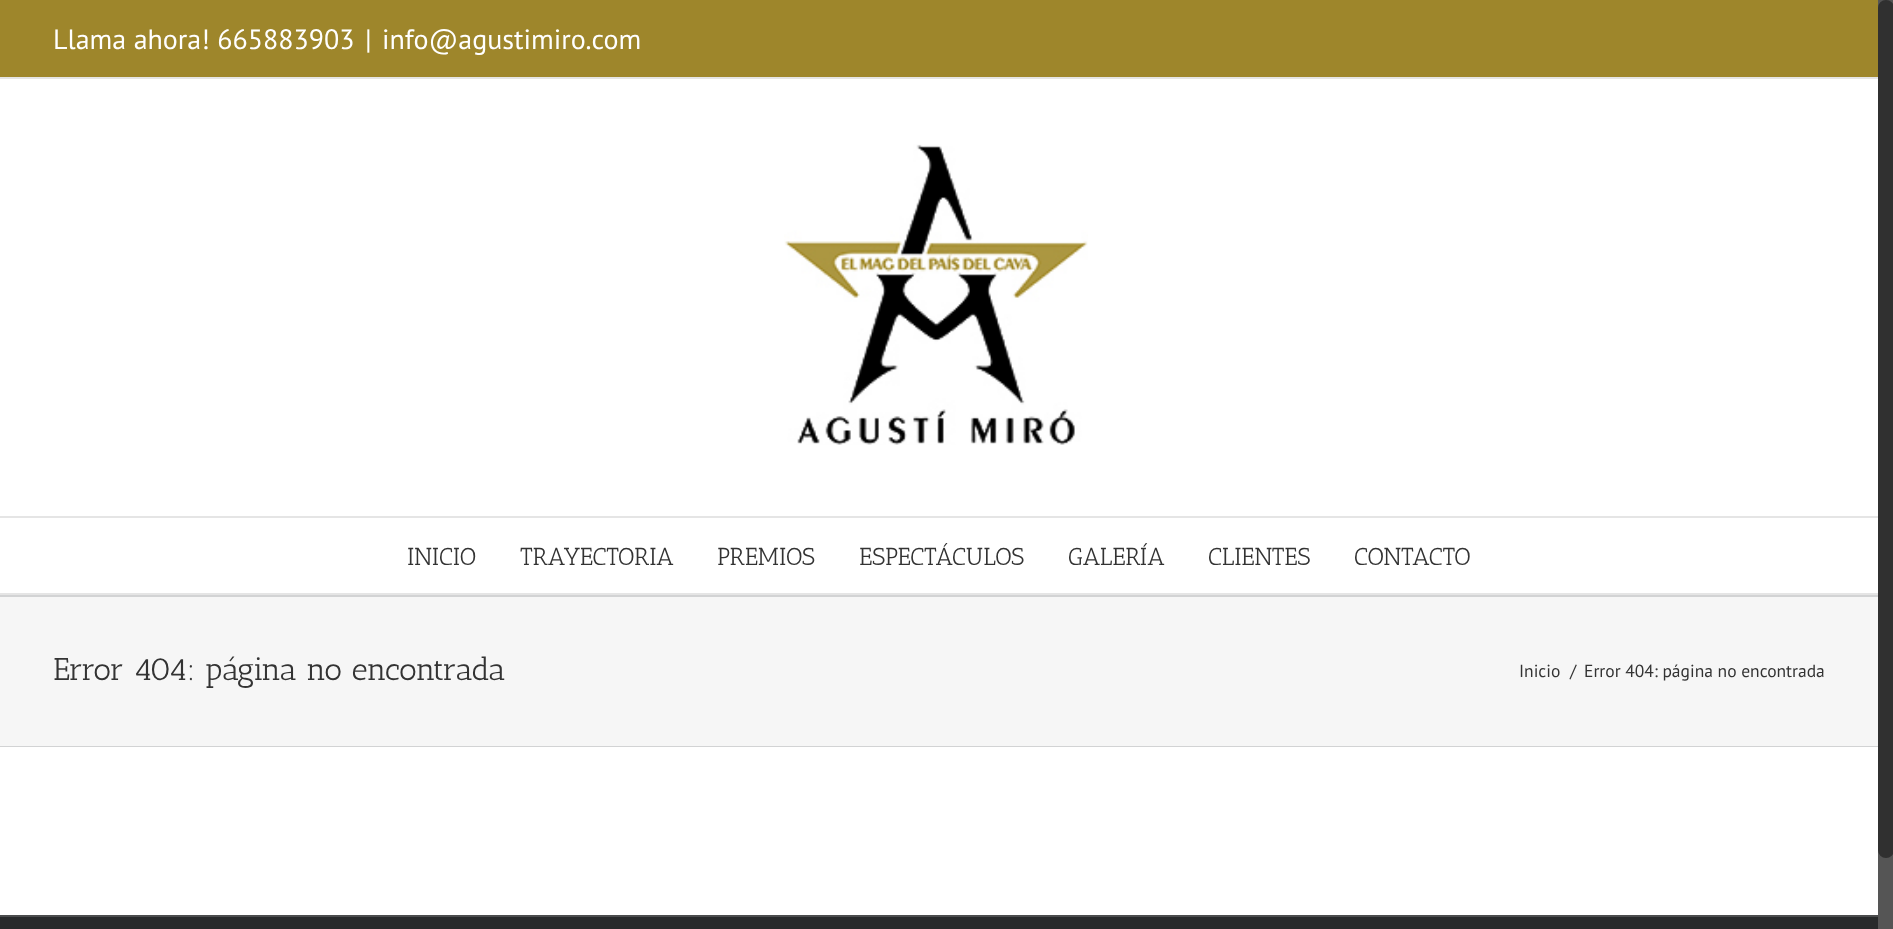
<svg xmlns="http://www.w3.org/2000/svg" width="1893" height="929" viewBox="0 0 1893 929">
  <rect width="100%" height="100%" fill="rgb(255,255,255)"/>
  <rect x="0" y="0" width="1878" height="77" fill="rgb(158,134,43)"/>
  <rect x="0" y="77" width="1878" height="2" fill="rgb(229,229,229)"/>
  <g font-family="PT Sans" font-size="28" fill="rgb(255,255,255)">
    <text x="53" y="49">Llama ahora! 665883903</text>
    <text x="365" y="49">|</text>
    <text x="382" y="49">info@agustimiro.com</text>
  </g>
  <rect x="0" y="516" width="1878" height="2" fill="rgb(229,229,229)"/>
  <image x="784" y="144" width="304" height="301" href="pic1.png"/>
  <rect x="0" y="593" width="1878" height="2" fill="rgb(229,229,229)"/>
  <g font-family="Antic Slab" font-size="24.5" fill="rgb(51,51,51)">
    <text x="407" y="565">INICIO</text>
    <text x="520" y="565">TRAYECTORIA</text>
    <text x="717" y="565">PREMIOS</text>
    <text x="859" y="565">ESPECTÁCULOS</text>
    <text x="1068" y="565">GALERÍA</text>
    <text x="1208" y="565">CLIENTES</text>
    <text x="1354" y="565">CONTACTO</text>
  </g>
  <rect x="0" y="597" width="1878" height="149" fill="rgb(246,246,246)"/>
  <rect x="0" y="595" width="1878" height="2" fill="rgb(210,211,212)"/>
  <rect x="0" y="746" width="1878" height="1" fill="rgb(210,211,212)"/>
  <text x="53" y="680" font-family="Antic Slab" font-size="31.5" fill="rgb(51,51,51)">Error 404: página no encontrada</text>
  <g font-family="PT Sans" font-size="17.5" fill="rgb(51,51,51)">
    <text x="1519" y="677">Inicio</text>
    <text x="1570" y="677">/</text>
    <text x="1584" y="677">Error 404: página no encontrada</text>
  </g>
  <rect x="0" y="917" width="1878" height="12" fill="rgb(40,42,43)"/>
  <rect x="0" y="915" width="1878" height="2" fill="rgb(75,76,77)"/>
  <rect x="1878" y="0" width="15" height="929" fill="rgb(85,85,85)"/>
  <rect x="1878" y="0" width="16" height="858" rx="8" fill="rgb(48,48,48)"/>
</svg>
